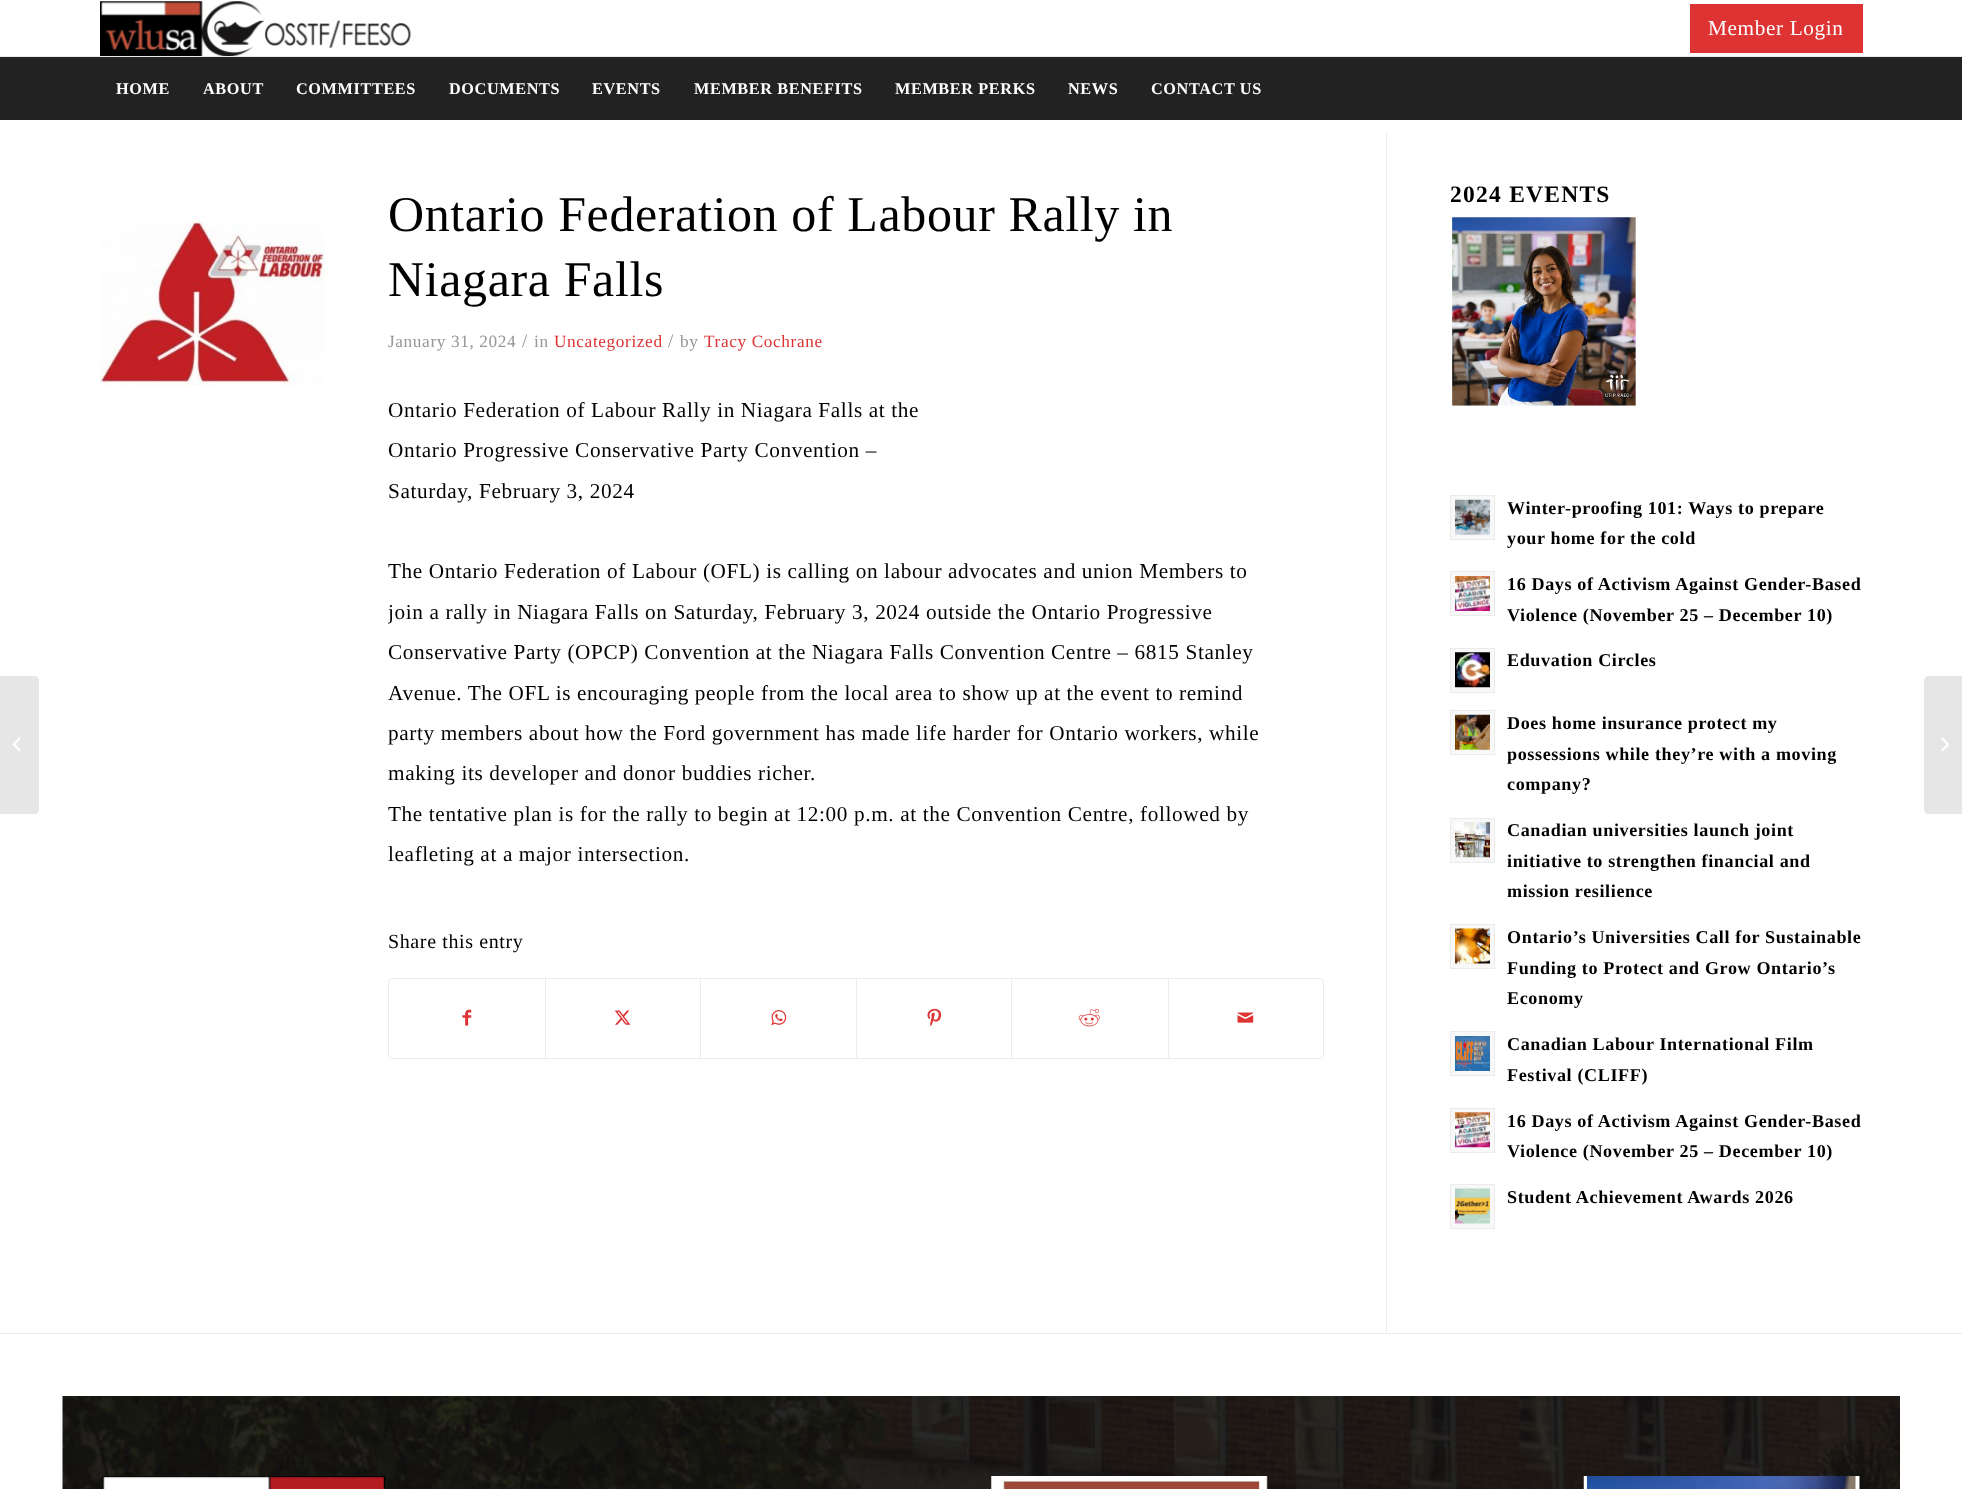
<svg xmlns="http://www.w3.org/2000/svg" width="1962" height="1489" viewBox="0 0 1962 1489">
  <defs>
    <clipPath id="clip1"><rect x="388" y="183" width="998" height="1001"/></clipPath>
  </defs>
  <rect width="100%" height="100%" fill="rgb(255,255,255)"/>
  <image x="100" y="1" width="312" height="55" href="pic1.png"/>
  <rect x="1690" y="4" width="173" height="49" fill="rgb(221,51,51)"/>
  <text x="1708" y="35" font-family="Liberation Serif" font-size="21.25" letter-spacing="0.62" fill="rgb(255,255,255)">Member Login</text>
  <rect x="0" y="57" width="1962" height="63" fill="rgb(34,34,34)"/>
  <rect x="0" y="56" width="1962" height="1" fill="rgb(235,235,235)"/>
  <g font-family="Liberation Serif" font-size="16.25" font-weight="bold" letter-spacing="0.62" fill="rgb(255,255,255)">
    <text x="116" y="94">HOME</text>
    <text x="203" y="94">ABOUT</text>
    <text x="296" y="94">COMMITTEES</text>
    <text x="449" y="94">DOCUMENTS</text>
    <text x="592" y="94">EVENTS</text>
    <text x="694" y="94">MEMBER BENEFITS</text>
    <text x="895" y="94">MEMBER PERKS</text>
    <text x="1068" y="94">NEWS</text>
    <text x="1151" y="94">CONTACT US</text>
  </g>
  <path d="M0 676H34C37 676 39 678 39 681V809C39 812 37 814 34 814H0Z" fill="rgb(230,230,230)"/>
  <image x="12" y="737" width="9" height="15" href="pic2.png"/>
  <image x="100" y="216" width="225" height="171" href="pic3.png"/>
  <g font-family="Liberation Serif" font-size="50" letter-spacing="0.62" fill="rgb(0,0,0)">
    <text>
      <tspan x="388" y="231">Ontario Federation of Labour Rally in</tspan>
      <tspan x="388" y="296">Niagara Falls</tspan>
    </text>
  </g>
  <text x="388" y="347" font-family="Liberation Serif" font-size="17.25" letter-spacing="0.62" fill="rgb(150,150,150)">January 31, 2024</text>
  <text x="522" y="347" font-family="Liberation Serif" font-size="19" letter-spacing="0.62" fill="rgb(150,150,150)">/</text>
  <text x="534" y="347" font-family="Liberation Serif" font-size="17.25" letter-spacing="0.62" fill="rgb(150,150,150)">in</text>
  <text x="554" y="347" font-family="Liberation Serif" font-size="17.25" letter-spacing="0.62" fill="rgb(221,51,51)">Uncategorized</text>
  <text x="668" y="347" font-family="Liberation Serif" font-size="19" letter-spacing="0.62" fill="rgb(150,150,150)">/</text>
  <text x="680" y="347" font-family="Liberation Serif" font-size="17.25" letter-spacing="0.62" fill="rgb(150,150,150)">by</text>
  <text x="704" y="347" font-family="Liberation Serif" font-size="17.25" letter-spacing="0.62" fill="rgb(221,51,51)">Tracy Cochrane</text>
  <g font-family="Liberation Serif" font-size="21.25" letter-spacing="0.62" fill="rgb(0,0,0)">
    <text>
      <tspan x="388" y="417">Ontario Federation of Labour Rally in Niagara Falls at the</tspan>
      <tspan x="388" y="457">Ontario Progressive Conservative Party Convention –</tspan>
      <tspan x="388" y="498">Saturday, February 3, 2024</tspan>
    </text>
  </g>
  <g clip-path="url(#clip1)">
    <g font-family="Liberation Serif" font-size="21.25" letter-spacing="0.62" fill="rgb(0,0,0)">
      <text>
        <tspan x="388" y="578">The Ontario Federation of Labour (OFL) is calling on labour advocates and union Members to</tspan>
        <tspan x="388" y="619">join a rally in Niagara Falls on Saturday, February 3, 2024 outside the Ontario Progressive</tspan>
      </text>
    </g>
  </g>
  <g font-family="Liberation Serif" font-size="21.25" letter-spacing="0.62" fill="rgb(0,0,0)">
    <text>
      <tspan x="388" y="659">Conservative Party (OPCP) Convention at the Niagara Falls Convention Centre – 6815 Stanley</tspan>
      <tspan x="388" y="700">Avenue. The OFL is encouraging people from the local area to show up at the event to remind</tspan>
      <tspan x="388" y="740">party members about how the Ford government has made life harder for Ontario workers, while</tspan>
      <tspan x="388" y="780">making its developer and donor buddies richer.</tspan>
    </text>
  </g>
  <g clip-path="url(#clip1)">
    <text x="388" y="821" font-family="Liberation Serif" font-size="21.25" letter-spacing="0.62" fill="rgb(0,0,0)">The tentative plan is for the rally to begin at 12:00 p.m. at the Convention Centre, followed by</text>
  </g>
  <text x="388" y="861" font-family="Liberation Serif" font-size="21.25" letter-spacing="0.62" fill="rgb(0,0,0)">leafleting at a major intersection.</text>
  <text x="388" y="948" font-family="Liberation Serif" font-size="20" letter-spacing="0.62" fill="rgb(0,0,0)">Share this entry</text>
  <rect x="388.5" y="978.5" width="935" height="80" rx="3.5" fill="none" stroke="rgb(235,235,235)"/>
  <image x="462" y="1009" width="10" height="17" href="pic4.png"/>
  <rect x="545" y="979" width="1" height="79" fill="rgb(235,235,235)"/>
  <image x="614" y="1010" width="17" height="15" href="pic5.png"/>
  <rect x="700" y="979" width="1" height="79" fill="rgb(235,235,235)"/>
  <image x="771" y="1010" width="16" height="16" href="pic6.png"/>
  <rect x="856" y="979" width="1" height="79" fill="rgb(235,235,235)"/>
  <image x="927" y="1008" width="15" height="19" href="pic7.png"/>
  <rect x="1011" y="979" width="1" height="79" fill="rgb(235,235,235)"/>
  <image x="1078" y="1008" width="22" height="19" href="pic8.png"/>
  <rect x="1168" y="979" width="1" height="79" fill="rgb(235,235,235)"/>
  <image x="1237" y="1012" width="17" height="11" href="pic9.png"/>
  <rect x="1386" y="133" width="1" height="1200" fill="rgb(235,235,235)"/>
  <text x="1450" y="202" font-family="Liberation Serif" font-size="23.5" font-weight="bold" letter-spacing="1.25" fill="rgb(0,0,0)">2024 EVENTS</text>
  <image x="1452" y="217" width="184" height="189" href="pic10.png"/>
  <rect x="1450.5" y="495.5" width="44" height="44" fill="rgb(248,248,248)" stroke="rgb(235,235,235)"/>
  <image x="1455" y="499" width="35" height="36" href="pic11.png"/>
  <g font-family="Liberation Serif" font-size="18.1" font-weight="bold" letter-spacing="0.62" fill="rgb(0,0,0)">
    <text>
      <tspan x="1507" y="514">Winter-proofing 101: Ways to prepare</tspan>
      <tspan x="1507" y="544">your home for the cold</tspan>
    </text>
  </g>
  <rect x="1450.5" y="571.5" width="44" height="44" fill="rgb(248,248,248)" stroke="rgb(235,235,235)"/>
  <image x="1455" y="576" width="35" height="35" href="pic12.png"/>
  <g font-family="Liberation Serif" font-size="18.1" font-weight="bold" letter-spacing="0.62" fill="rgb(0,0,0)">
    <text>
      <tspan x="1507" y="590">16 Days of Activism Against Gender-Based</tspan>
      <tspan x="1507" y="621">Violence (November 25 – December 10)</tspan>
    </text>
  </g>
  <rect x="1450.5" y="648.5" width="44" height="44" fill="rgb(248,248,248)" stroke="rgb(235,235,235)"/>
  <image x="1455" y="652" width="35" height="36" href="pic13.png"/>
  <text x="1507" y="666" font-family="Liberation Serif" font-size="18.1" font-weight="bold" letter-spacing="0.62" fill="rgb(0,0,0)">Eduvation Circles</text>
  <rect x="1450.5" y="710.5" width="44" height="44" fill="rgb(248,248,248)" stroke="rgb(235,235,235)"/>
  <image x="1455" y="714" width="35" height="36" href="pic14.png"/>
  <g font-family="Liberation Serif" font-size="18.1" font-weight="bold" letter-spacing="0.62" fill="rgb(0,0,0)">
    <text>
      <tspan x="1507" y="729">Does home insurance protect my</tspan>
      <tspan x="1507" y="760">possessions while they’re with a moving</tspan>
      <tspan x="1507" y="790">company?</tspan>
    </text>
  </g>
  <rect x="1450.5" y="818.5" width="44" height="44" fill="rgb(248,248,248)" stroke="rgb(235,235,235)"/>
  <image x="1455" y="822" width="35" height="36" href="pic15.png"/>
  <g font-family="Liberation Serif" font-size="18.1" font-weight="bold" letter-spacing="0.62" fill="rgb(0,0,0)">
    <text>
      <tspan x="1507" y="836">Canadian universities launch joint</tspan>
      <tspan x="1507" y="867">initiative to strengthen financial and</tspan>
      <tspan x="1507" y="897">mission resilience</tspan>
    </text>
  </g>
  <rect x="1450.5" y="924.5" width="44" height="44" fill="rgb(248,248,248)" stroke="rgb(235,235,235)"/>
  <image x="1455" y="928" width="35" height="36" href="pic16.png"/>
  <g font-family="Liberation Serif" font-size="18.1" font-weight="bold" letter-spacing="0.62" fill="rgb(0,0,0)">
    <text>
      <tspan x="1507" y="943">Ontario’s Universities Call for Sustainable</tspan>
      <tspan x="1507" y="974">Funding to Protect and Grow Ontario’s</tspan>
      <tspan x="1507" y="1004">Economy</tspan>
    </text>
  </g>
  <rect x="1450.5" y="1031.5" width="44" height="44" fill="rgb(248,248,248)" stroke="rgb(235,235,235)"/>
  <image x="1455" y="1036" width="35" height="35" href="pic17.png"/>
  <g font-family="Liberation Serif" font-size="18.1" font-weight="bold" letter-spacing="0.62" fill="rgb(0,0,0)">
    <text>
      <tspan x="1507" y="1050">Canadian Labour International Film</tspan>
      <tspan x="1507" y="1081">Festival (CLIFF)</tspan>
    </text>
  </g>
  <rect x="1450.5" y="1108.5" width="44" height="44" fill="rgb(248,248,248)" stroke="rgb(235,235,235)"/>
  <image x="1455" y="1112" width="35" height="36" href="pic18.png"/>
  <g font-family="Liberation Serif" font-size="18.1" font-weight="bold" letter-spacing="0.62" fill="rgb(0,0,0)">
    <text>
      <tspan x="1507" y="1127">16 Days of Activism Against Gender-Based</tspan>
      <tspan x="1507" y="1157">Violence (November 25 – December 10)</tspan>
    </text>
  </g>
  <rect x="1450.5" y="1184.5" width="44" height="44" fill="rgb(248,248,248)" stroke="rgb(235,235,235)"/>
  <image x="1455" y="1188" width="35" height="36" href="pic19.png"/>
  <text x="1507" y="1203" font-family="Liberation Serif" font-size="18.1" font-weight="bold" letter-spacing="0.62" fill="rgb(0,0,0)">Student Achievement Awards 2026</text>
  <rect x="0" y="1333" width="1962" height="1" fill="rgb(235,235,235)"/>
  <image x="62" y="1396" width="1838" height="93" href="pic20.png"/>
  <image x="102" y="1476" width="283" height="13" href="pic21.png"/>
  <image x="991" y="1476" width="277" height="13" href="pic22.png"/>
  <image x="1583" y="1476" width="277" height="13" href="pic23.png"/>
  <path d="M1929 676H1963V814H1929C1926 814 1924 812 1924 809V681C1924 678 1926 676 1929 676Z" fill="rgb(230,230,230)"/>
  <image x="1941" y="737" width="8" height="15" href="pic24.png"/>
</svg>
